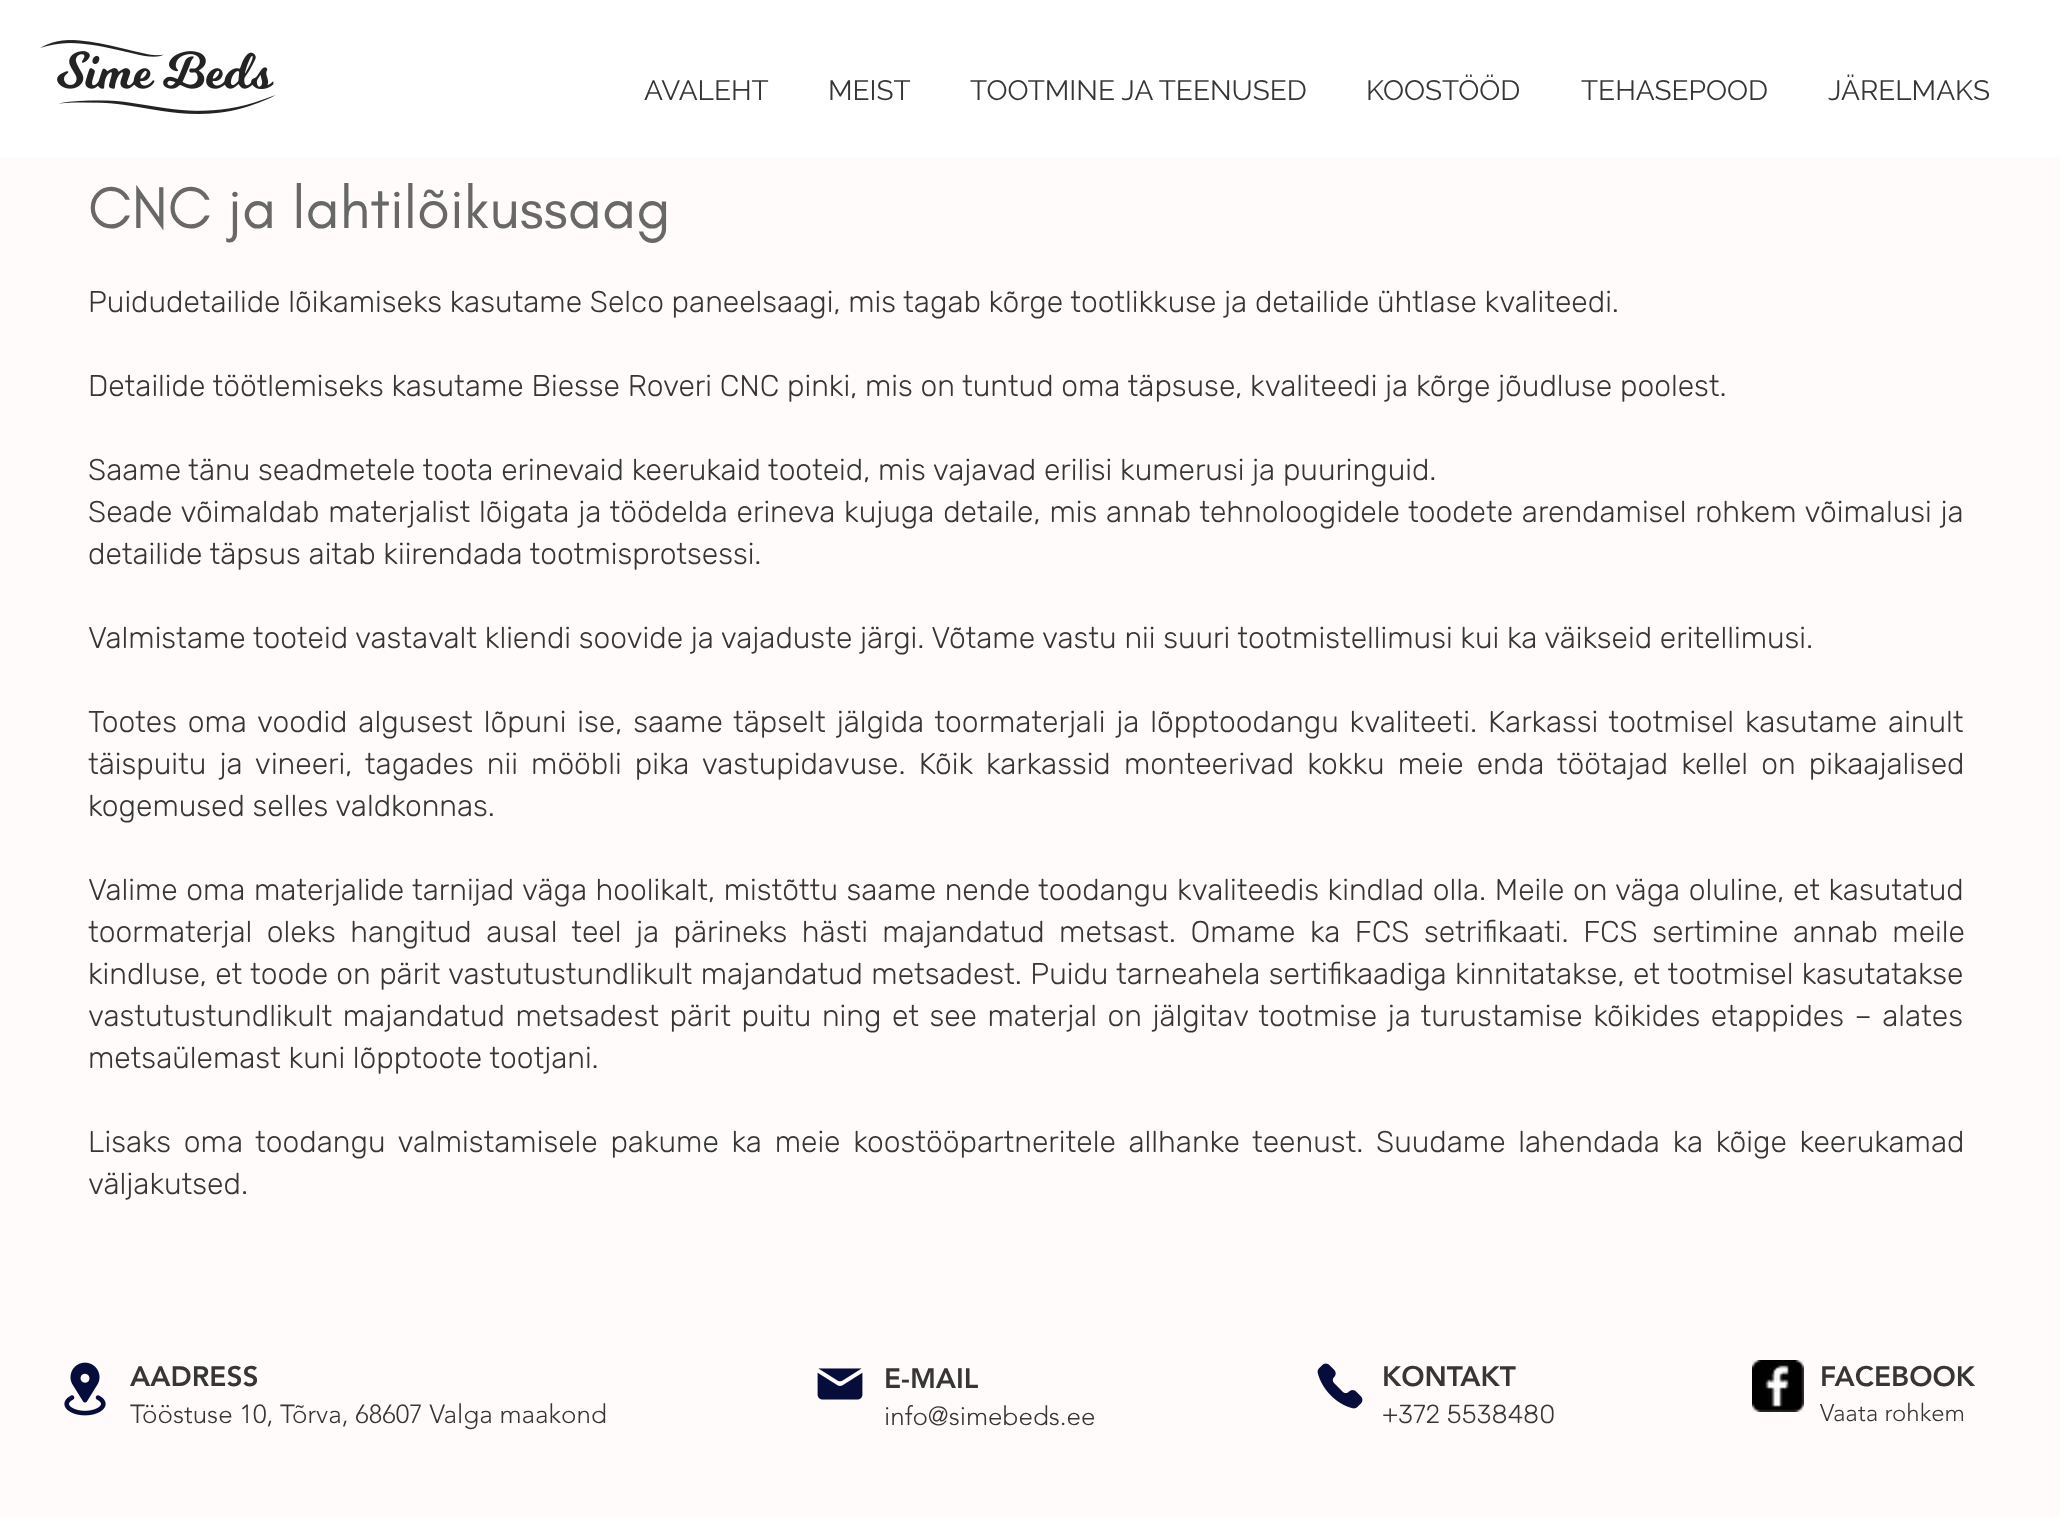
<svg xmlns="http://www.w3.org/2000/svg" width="2060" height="1518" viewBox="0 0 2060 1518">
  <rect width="100%" height="100%" fill="rgb(255,251,250)"/>
  <rect x="0" y="0" width="2060" height="158" fill="rgb(255,255,255)"/>
  <image x="40" y="40" width="236" height="74" href="pic1.png"/>
  <g font-family="Raleway" font-size="28" fill="rgb(54,54,54)">
    <text x="644" y="100">AVALEHT</text>
    <text x="828" y="100">MEIST</text>
    <text x="970" y="100">TOOTMINE JA TEENUSED</text>
    <text x="1366" y="100">KOOSTÖÖD</text>
    <text x="1581" y="100">TEHASEPOOD</text>
    <text x="1828" y="100">JÄRELMAKS</text>
  </g>
  <text x="88" y="228" font-family="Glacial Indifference" font-size="60" fill="rgb(104,104,104)">CNC ja lahtilõikussaag</text>
  <g font-family="Rubik" font-size="30" font-weight="300" fill="rgb(54,54,54)">
    <text x="88" y="312">Puidudetailide lõikamiseks kasutame Selco paneelsaagi, mis tagab kõrge tootlikkuse ja detailide ühtlase kvaliteedi.</text>
    <text x="88" y="396">Detailide töötlemiseks kasutame Biesse Roveri CNC pinki, mis on tuntud oma täpsuse, kvaliteedi ja kõrge jõudluse poolest.</text>
    <text>
      <tspan x="88" y="480">Saame tänu seadmetele toota erinevaid keerukaid tooteid, mis vajavad erilisi kumerusi ja puuringuid.</tspan>
      <tspan x="88" y="522" word-spacing="1.1">Seade võimaldab materjalist lõigata ja töödelda erineva kujuga detaile, mis annab tehnoloogidele toodete arendamisel rohkem võimalusi ja</tspan>
      <tspan x="88" y="564">detailide täpsus aitab kiirendada tootmisprotsessi.</tspan>
    </text>
    <text x="88" y="648">Valmistame tooteid vastavalt kliendi soovide ja vajaduste järgi. Võtame vastu nii suuri tootmistellimusi kui ka väikseid eritellimusi.</text>
    <text>
      <tspan x="88" y="732" word-spacing="3.1">Tootes oma voodid algusest lõpuni ise, saame täpselt jälgida toormaterjali ja lõpptoodangu kvaliteeti. Karkassi tootmisel kasutame ainult</tspan>
      <tspan x="88" y="774" word-spacing="5.4">täispuitu ja vineeri, tagades nii mööbli pika vastupidavuse. Kõik karkassid monteerivad kokku meie enda töötajad kellel on pikaajalised</tspan>
      <tspan x="88" y="816">kogemused selles valdkonnas.</tspan>
    </text>
    <text>
      <tspan x="88" y="900" word-spacing="0.8">Valime oma materjalide tarnijad väga hoolikalt, mistõttu saame nende toodangu kvaliteedis kindlad olla. Meile on väga oluline, et kasutatud</tspan>
      <tspan x="88" y="942" word-spacing="6.75">toormaterjal oleks hangitud ausal teel ja pärineks hästi majandatud metsast. Omame ka FCS setrifikaati. FCS sertimine annab meile</tspan>
      <tspan x="88" y="984" word-spacing="0.6">kindluse, et toode on pärit vastutustundlikult majandatud metsadest. Puidu tarneahela sertifikaadiga kinnitatakse, et tootmisel kasutatakse</tspan>
      <tspan x="88" y="1026" word-spacing="2.75">vastutustundlikult majandatud metsadest pärit puitu ning et see materjal on jälgitav tootmise ja turustamise kõikides etappides – alates</tspan>
      <tspan x="88" y="1068">metsaülemast kuni lõpptoote tootjani.</tspan>
    </text>
    <text>
      <tspan x="88" y="1152" word-spacing="5">Lisaks oma toodangu valmistamisele pakume ka meie koostööpartneritele allhanke teenust. Suudame lahendada ka kõige keerukamad</tspan>
      <tspan x="88" y="1194">väljakutsed.</tspan>
    </text>
  </g>
  <image x="64" y="1362" width="42" height="54" href="pic2.png"/>
  <text x="130" y="1386" font-family="'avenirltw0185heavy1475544'" font-size="28" font-weight="900" fill="rgb(54,54,54)">AADRESS</text>
  <text x="130" y="1423" font-family="'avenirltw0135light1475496'" font-size="26" font-weight="300" fill="rgb(54,54,54)">Tööstuse 10, Tõrva, 68607 Valga maakond</text>
  <image x="817" y="1368" width="46" height="32" href="pic3.png"/>
  <text x="884" y="1388" font-family="'avenirltw0185heavy1475544'" font-size="28" font-weight="900" fill="rgb(54,54,54)">E-MAIL</text>
  <text x="884" y="1425" font-family="'avenirltw0135light1475496'" font-size="26" font-weight="300" fill="rgb(54,54,54)">info@simebeds.ee</text>
  <image x="1317" y="1363" width="46" height="46" href="pic4.png"/>
  <text x="1382" y="1386" font-family="'avenirltw0185heavy1475544'" font-size="28" font-weight="900" fill="rgb(54,54,54)">KONTAKT</text>
  <text x="1382" y="1423" font-family="Rubik" font-size="26" font-weight="300" fill="rgb(54,54,54)">+372 5538480</text>
  <image x="1752" y="1360" width="52" height="52" href="pic5.png"/>
  <text x="1820" y="1386" font-family="'avenirltw0185heavy1475544'" font-size="28" font-weight="900" fill="rgb(54,54,54)">FACEBOOK</text>
  <text x="1820" y="1421" font-family="'avenirltw0135light1475496'" font-size="24" font-weight="300" fill="rgb(54,54,54)">Vaata rohkem</text>
</svg>
